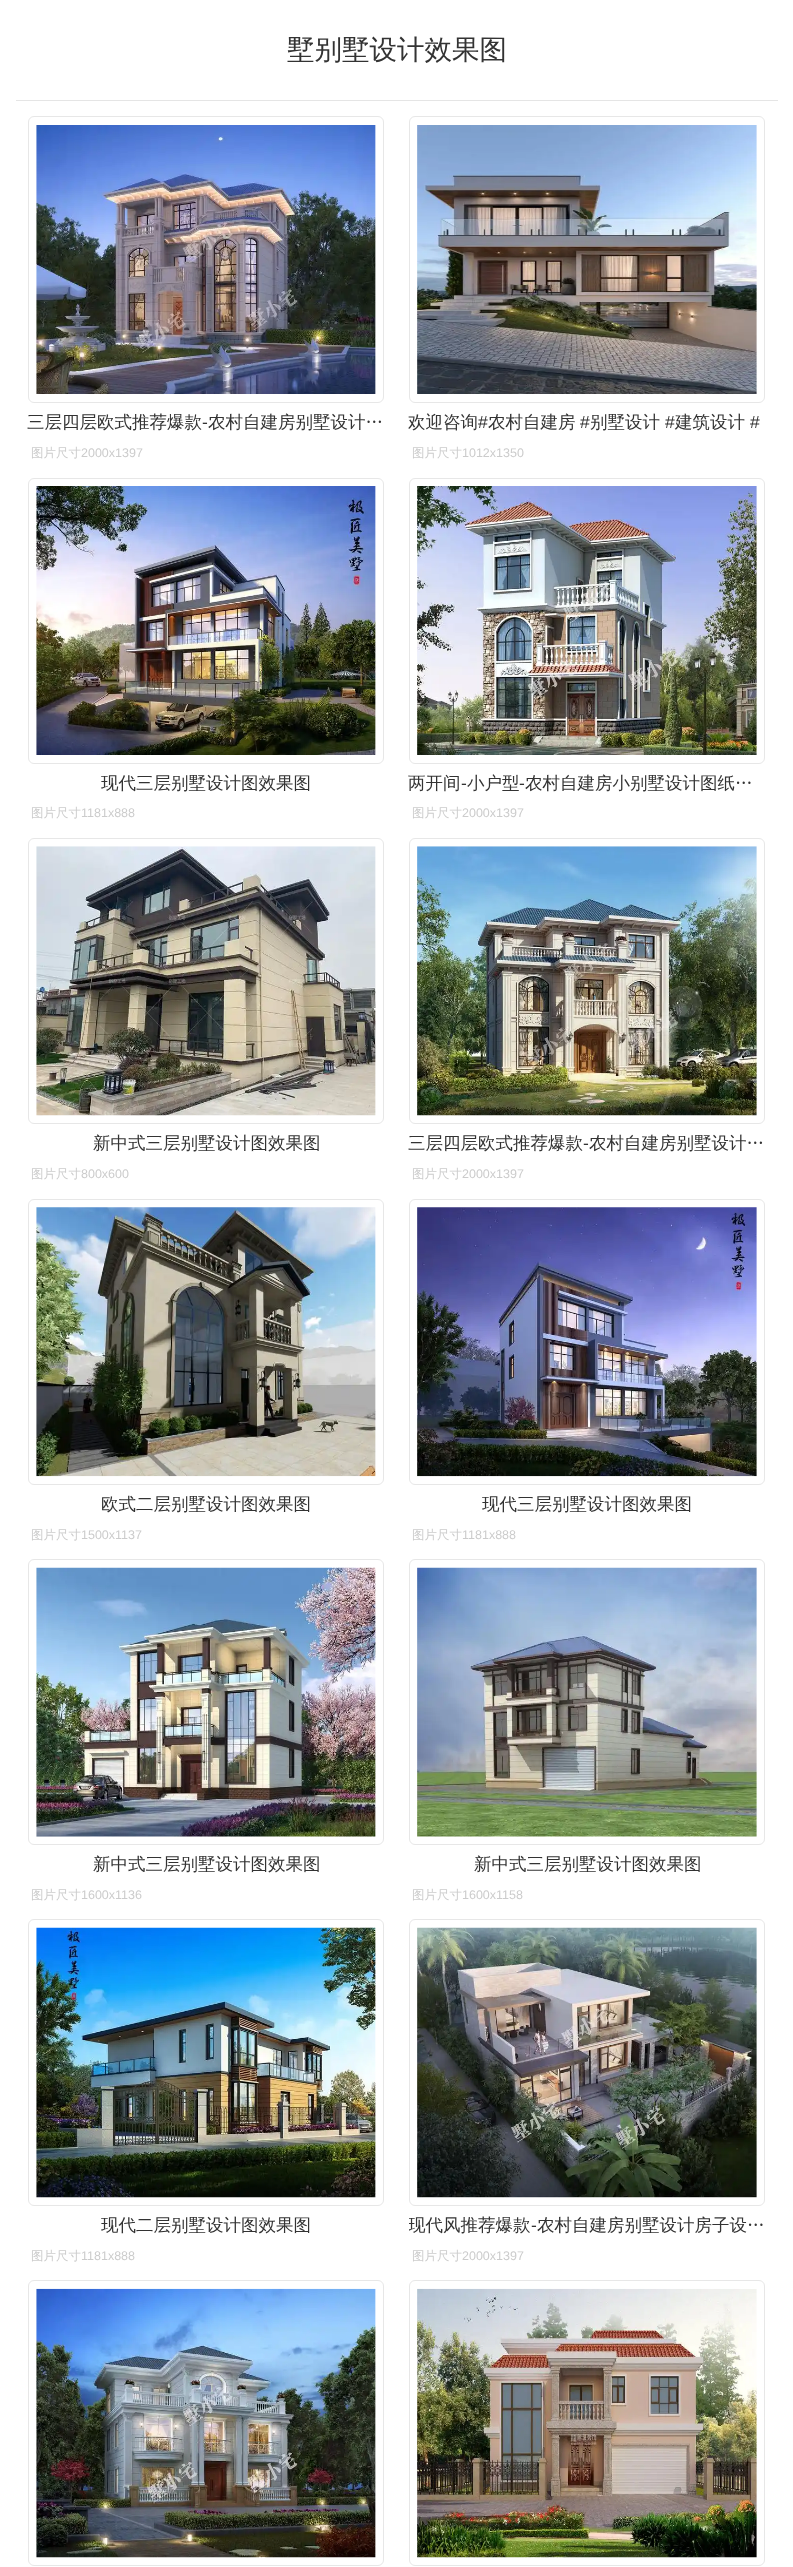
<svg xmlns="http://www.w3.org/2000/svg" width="793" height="2567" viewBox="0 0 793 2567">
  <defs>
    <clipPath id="clip1"><rect x="409" y="2206" width="357" height="38"/></clipPath>
  </defs>
  <rect width="100%" height="100%" fill="rgb(255,255,255)"/>
  <rect x="16" y="100" width="762" height="1" fill="rgb(229,229,229)"/>
  <text x="287" y="59" font-family="WenQuanYi Zen Hei" font-size="27.5" font-weight="500" fill="rgb(51,51,51)">墅别墅设计效果图</text>
  <rect x="28.5" y="116.5" width="355" height="286" rx="5.5" fill="none" stroke="rgb(231,231,231)"/>
  <image x="36" y="125" width="340" height="269" href="pic1.png"/>
  <text x="27" y="428" font-family="WenQuanYi Zen Hei" font-size="17.5" font-weight="500" fill="rgb(51,51,51)">三层四层欧式推荐爆款</text>
  <text x="202" y="428" font-family="Liberation Sans" font-size="17.5" fill="rgb(51,51,51)">-</text>
  <text x="208" y="428" font-family="WenQuanYi Zen Hei" font-size="17.5" font-weight="500" fill="rgb(51,51,51)">农村自建房别墅设计…</text>
  <text x="31" y="457" font-family="WenQuanYi Zen Hei" font-size="12.5" font-weight="500" fill="rgb(204,204,204)">图片尺寸</text>
  <text x="81" y="457" font-family="Liberation Sans" font-size="12.5" fill="rgb(204,204,204)">2000x1397</text>
  <rect x="409.5" y="116.5" width="355" height="286" rx="5.5" fill="none" stroke="rgb(231,231,231)"/>
  <image x="417" y="125" width="340" height="269" href="pic2.png"/>
  <text x="408" y="428" font-family="WenQuanYi Zen Hei" font-size="17.5" font-weight="500" fill="rgb(51,51,51)">欢迎咨询</text>
  <text x="478" y="428" font-family="Liberation Sans" font-size="17.5" fill="rgb(51,51,51)">#</text>
  <text x="488" y="428" font-family="WenQuanYi Zen Hei" font-size="17.5" font-weight="500" fill="rgb(51,51,51)">农村自建房</text>
  <text x="580" y="428" font-family="Liberation Sans" font-size="17.5" fill="rgb(51,51,51)">#</text>
  <text x="590" y="428" font-family="WenQuanYi Zen Hei" font-size="17.5" font-weight="500" fill="rgb(51,51,51)">别墅设计</text>
  <text x="665" y="428" font-family="Liberation Sans" font-size="17.5" fill="rgb(51,51,51)">#</text>
  <text x="675" y="428" font-family="WenQuanYi Zen Hei" font-size="17.5" font-weight="500" fill="rgb(51,51,51)">建筑设计</text>
  <text x="750" y="428" font-family="Liberation Sans" font-size="17.5" fill="rgb(51,51,51)">#</text>
  <text x="412" y="457" font-family="WenQuanYi Zen Hei" font-size="12.5" font-weight="500" fill="rgb(204,204,204)">图片尺寸</text>
  <text x="462" y="457" font-family="Liberation Sans" font-size="12.5" fill="rgb(204,204,204)">1012x1350</text>
  <rect x="28.5" y="478.5" width="355" height="285" rx="5.5" fill="none" stroke="rgb(231,231,231)"/>
  <image x="36" y="486" width="340" height="269" href="pic3.png"/>
  <text x="101" y="789" font-family="WenQuanYi Zen Hei" font-size="17.5" font-weight="500" fill="rgb(51,51,51)">现代三层别墅设计图效果图</text>
  <text x="31" y="817" font-family="WenQuanYi Zen Hei" font-size="12.5" font-weight="500" fill="rgb(204,204,204)">图片尺寸</text>
  <text x="81" y="817" font-family="Liberation Sans" font-size="12.5" fill="rgb(204,204,204)">1181x888</text>
  <rect x="409.5" y="478.5" width="355" height="285" rx="5.5" fill="none" stroke="rgb(231,231,231)"/>
  <image x="417" y="486" width="340" height="269" href="pic4.png"/>
  <text x="408" y="789" font-family="WenQuanYi Zen Hei" font-size="17.5" font-weight="500" fill="rgb(51,51,51)">两开间</text>
  <text x="461" y="789" font-family="Liberation Sans" font-size="17.5" fill="rgb(51,51,51)">-</text>
  <text x="467" y="789" font-family="WenQuanYi Zen Hei" font-size="17.5" font-weight="500" fill="rgb(51,51,51)">小户型</text>
  <text x="519" y="789" font-family="Liberation Sans" font-size="17.5" fill="rgb(51,51,51)">-</text>
  <text x="525" y="789" font-family="WenQuanYi Zen Hei" font-size="17.5" font-weight="500" fill="rgb(51,51,51)">农村自建房小别墅设计图纸…</text>
  <text x="412" y="817" font-family="WenQuanYi Zen Hei" font-size="12.5" font-weight="500" fill="rgb(204,204,204)">图片尺寸</text>
  <text x="462" y="817" font-family="Liberation Sans" font-size="12.5" fill="rgb(204,204,204)">2000x1397</text>
  <rect x="28.5" y="838.5" width="355" height="285" rx="5.5" fill="none" stroke="rgb(231,231,231)"/>
  <image x="36" y="846" width="340" height="270" href="pic5.png"/>
  <text x="93" y="1149" font-family="WenQuanYi Zen Hei" font-size="17.5" font-weight="500" fill="rgb(51,51,51)">新中式三层别墅设计图效果图</text>
  <text x="31" y="1178" font-family="WenQuanYi Zen Hei" font-size="12.5" font-weight="500" fill="rgb(204,204,204)">图片尺寸</text>
  <text x="81" y="1178" font-family="Liberation Sans" font-size="12.5" fill="rgb(204,204,204)">800x600</text>
  <rect x="409.5" y="838.5" width="355" height="285" rx="5.5" fill="none" stroke="rgb(231,231,231)"/>
  <image x="417" y="846" width="340" height="270" href="pic6.png"/>
  <text x="408" y="1149" font-family="WenQuanYi Zen Hei" font-size="17.5" font-weight="500" fill="rgb(51,51,51)">三层四层欧式推荐爆款</text>
  <text x="583" y="1149" font-family="Liberation Sans" font-size="17.5" fill="rgb(51,51,51)">-</text>
  <text x="589" y="1149" font-family="WenQuanYi Zen Hei" font-size="17.5" font-weight="500" fill="rgb(51,51,51)">农村自建房别墅设计…</text>
  <text x="412" y="1178" font-family="WenQuanYi Zen Hei" font-size="12.5" font-weight="500" fill="rgb(204,204,204)">图片尺寸</text>
  <text x="462" y="1178" font-family="Liberation Sans" font-size="12.5" fill="rgb(204,204,204)">2000x1397</text>
  <rect x="28.5" y="1199.5" width="355" height="285" rx="5.5" fill="none" stroke="rgb(231,231,231)"/>
  <image x="36" y="1207" width="340" height="270" href="pic7.png"/>
  <text x="101" y="1510" font-family="WenQuanYi Zen Hei" font-size="17.5" font-weight="500" fill="rgb(51,51,51)">欧式二层别墅设计图效果图</text>
  <text x="31" y="1539" font-family="WenQuanYi Zen Hei" font-size="12.5" font-weight="500" fill="rgb(204,204,204)">图片尺寸</text>
  <text x="81" y="1539" font-family="Liberation Sans" font-size="12.5" fill="rgb(204,204,204)">1500x1137</text>
  <rect x="409.5" y="1199.5" width="355" height="285" rx="5.5" fill="none" stroke="rgb(231,231,231)"/>
  <image x="417" y="1207" width="340" height="270" href="pic8.png"/>
  <text x="482" y="1510" font-family="WenQuanYi Zen Hei" font-size="17.5" font-weight="500" fill="rgb(51,51,51)">现代三层别墅设计图效果图</text>
  <text x="412" y="1539" font-family="WenQuanYi Zen Hei" font-size="12.5" font-weight="500" fill="rgb(204,204,204)">图片尺寸</text>
  <text x="462" y="1539" font-family="Liberation Sans" font-size="12.5" fill="rgb(204,204,204)">1181x888</text>
  <rect x="28.5" y="1559.5" width="355" height="285" rx="5.5" fill="none" stroke="rgb(231,231,231)"/>
  <image x="36" y="1567" width="340" height="270" href="pic9.png"/>
  <text x="93" y="1870" font-family="WenQuanYi Zen Hei" font-size="17.5" font-weight="500" fill="rgb(51,51,51)">新中式三层别墅设计图效果图</text>
  <text x="31" y="1899" font-family="WenQuanYi Zen Hei" font-size="12.5" font-weight="500" fill="rgb(204,204,204)">图片尺寸</text>
  <text x="81" y="1899" font-family="Liberation Sans" font-size="12.5" fill="rgb(204,204,204)">1600x1136</text>
  <rect x="409.5" y="1559.5" width="355" height="285" rx="5.5" fill="none" stroke="rgb(231,231,231)"/>
  <image x="417" y="1567" width="340" height="270" href="pic10.png"/>
  <text x="474" y="1870" font-family="WenQuanYi Zen Hei" font-size="17.5" font-weight="500" fill="rgb(51,51,51)">新中式三层别墅设计图效果图</text>
  <text x="412" y="1899" font-family="WenQuanYi Zen Hei" font-size="12.5" font-weight="500" fill="rgb(204,204,204)">图片尺寸</text>
  <text x="462" y="1899" font-family="Liberation Sans" font-size="12.5" fill="rgb(204,204,204)">1600x1158</text>
  <rect x="28.5" y="1919.5" width="355" height="286" rx="5.5" fill="none" stroke="rgb(231,231,231)"/>
  <image x="36" y="1927" width="340" height="271" href="pic11.png"/>
  <text x="101" y="2231" font-family="WenQuanYi Zen Hei" font-size="17.5" font-weight="500" fill="rgb(51,51,51)">现代二层别墅设计图效果图</text>
  <text x="31" y="2260" font-family="WenQuanYi Zen Hei" font-size="12.5" font-weight="500" fill="rgb(204,204,204)">图片尺寸</text>
  <text x="81" y="2260" font-family="Liberation Sans" font-size="12.5" fill="rgb(204,204,204)">1181x888</text>
  <rect x="409.5" y="1919.5" width="355" height="286" rx="5.5" fill="none" stroke="rgb(231,231,231)"/>
  <image x="417" y="1927" width="340" height="271" href="pic12.png"/>
  <g clip-path="url(#clip1)">
    <text x="408" y="2231" font-family="WenQuanYi Zen Hei" font-size="17.5" font-weight="500" fill="rgb(51,51,51)">现代风推荐爆款</text>
  </g>
  <text x="531" y="2231" font-family="Liberation Sans" font-size="17.5" fill="rgb(51,51,51)">-</text>
  <text x="537" y="2231" font-family="WenQuanYi Zen Hei" font-size="17.5" font-weight="500" fill="rgb(51,51,51)">农村自建房别墅设计房子设…</text>
  <text x="412" y="2260" font-family="WenQuanYi Zen Hei" font-size="12.5" font-weight="500" fill="rgb(204,204,204)">图片尺寸</text>
  <text x="462" y="2260" font-family="Liberation Sans" font-size="12.5" fill="rgb(204,204,204)">2000x1397</text>
  <rect x="28.5" y="2280.5" width="355" height="285" rx="5.5" fill="none" stroke="rgb(231,231,231)"/>
  <image x="36" y="2288" width="340" height="270" href="pic13.png"/>
  <rect x="409.5" y="2280.5" width="355" height="285" rx="5.5" fill="none" stroke="rgb(231,231,231)"/>
  <image x="417" y="2288" width="340" height="270" href="pic14.png"/>
</svg>
